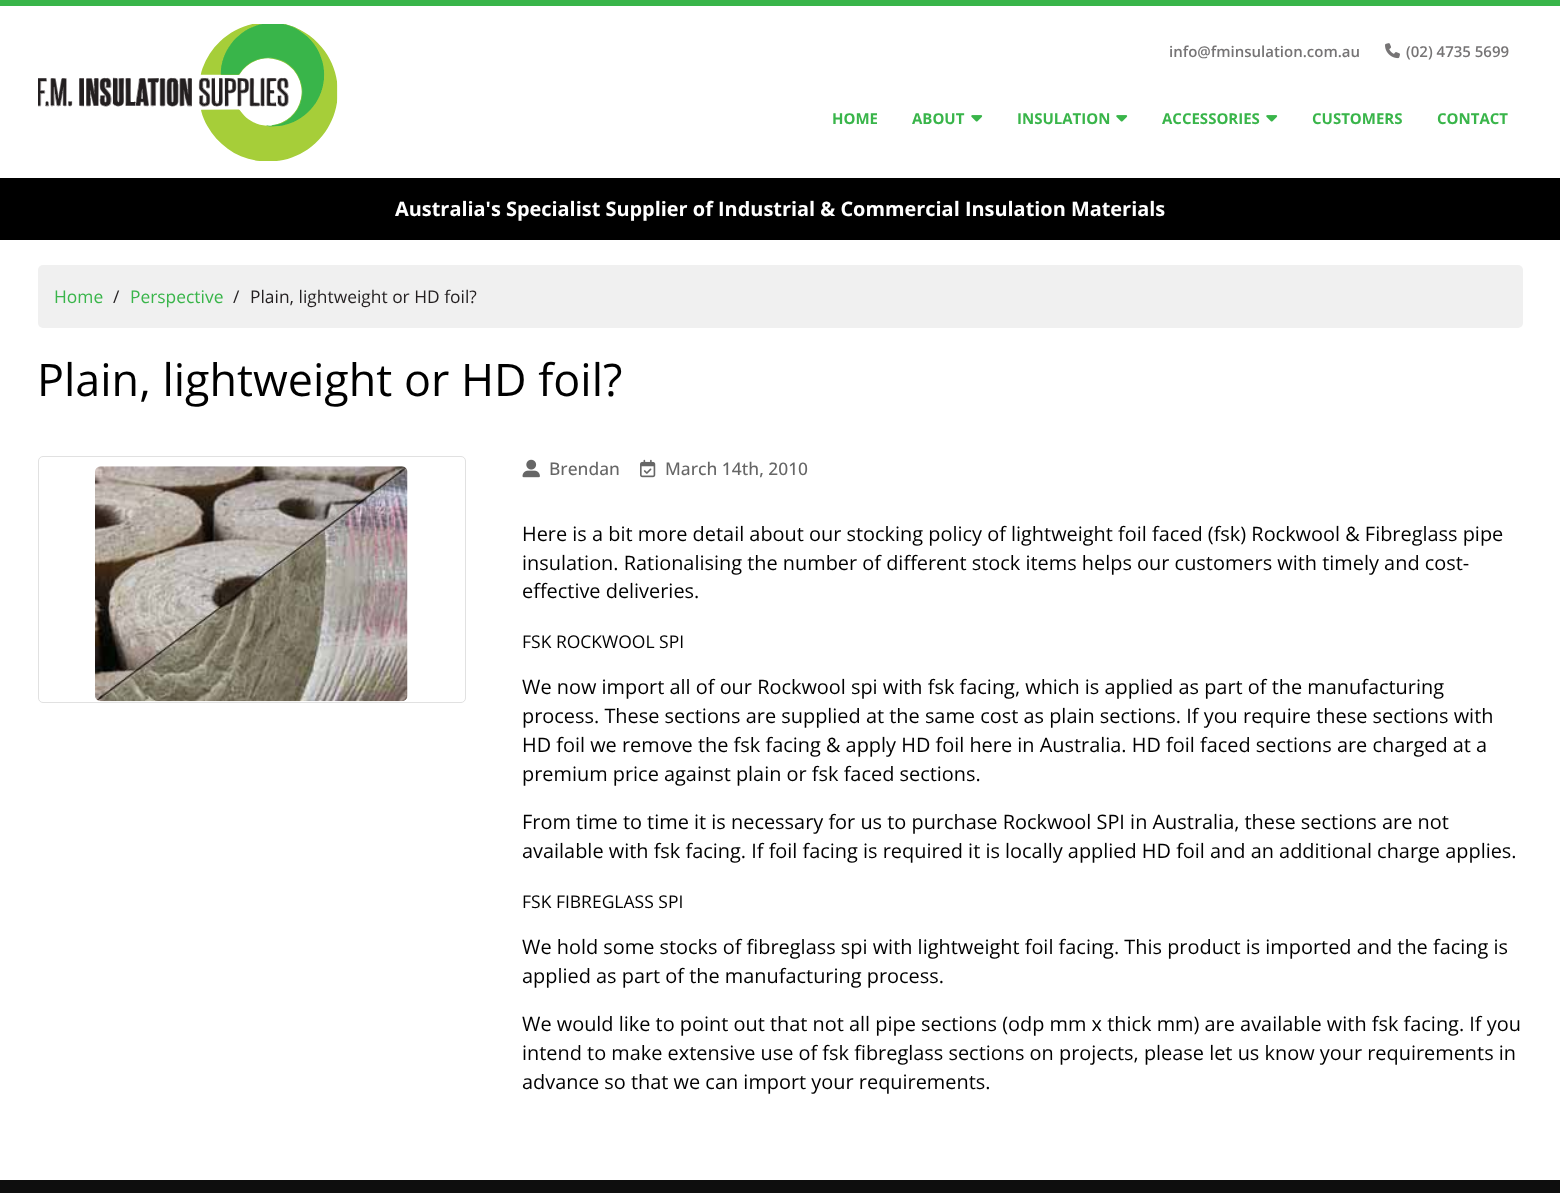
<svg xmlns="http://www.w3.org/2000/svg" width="1560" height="1193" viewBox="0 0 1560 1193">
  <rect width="100%" height="100%" fill="rgb(255,255,255)"/>
  <rect x="0" y="0" width="1560" height="6" fill="rgb(57,181,74)"/>
  <image x="38" y="24" width="300" height="137" href="pic1.png"/>
  <text x="1169" y="57" font-family="Open Sans" font-size="15" font-weight="600" fill="rgb(118,116,117)">info@fminsulation.com.au</text>
  <image x="1385" y="43" width="15" height="16" href="pic2.png"/>
  <text x="1406" y="57" font-family="Open Sans" font-size="15" font-weight="600" fill="rgb(118,116,117)">(02) 4735 5699</text>
  <g font-family="Open Sans" font-size="15" font-weight="bold" fill="rgb(57,181,74)">
    <text x="832" y="124">HOME</text>
    <text x="912" y="124">ABOUT</text>
  </g>
  <image x="971" y="115" width="12" height="7" href="pic3.png"/>
  <text x="1017" y="124" font-family="Open Sans" font-size="15" font-weight="bold" fill="rgb(57,181,74)">INSULATION</text>
  <image x="1116" y="115" width="12" height="7" href="pic3.png"/>
  <text x="1162" y="124" font-family="Open Sans" font-size="15" font-weight="bold" fill="rgb(57,181,74)">ACCESSORIES</text>
  <image x="1266" y="115" width="12" height="7" href="pic3.png"/>
  <g font-family="Open Sans" font-size="15" font-weight="bold" fill="rgb(57,181,74)">
    <text x="1312" y="124">CUSTOMERS</text>
    <text x="1437" y="124">CONTACT</text>
  </g>
  <rect x="0" y="178" width="1560" height="62" fill="rgb(0,0,0)"/>
  <text x="395" y="216" font-family="Open Sans" font-size="19.92" font-weight="bold" fill="rgb(255,255,255)">Australia's Specialist Supplier of Industrial &amp; Commercial Insulation Materials</text>
  <rect x="38" y="265" width="1485" height="63" rx="5" fill="rgb(240,240,240)"/>
  <text x="54" y="303" font-family="Open Sans" font-size="17.4" fill="rgb(57,181,74)">Home</text>
  <text x="113" y="303" font-family="Open Sans" font-size="17.4" fill="rgb(35,31,32)">/</text>
  <text x="130" y="303" font-family="Open Sans" font-size="17.4" fill="rgb(57,181,74)">Perspective</text>
  <g font-family="Open Sans" font-size="17.4" fill="rgb(35,31,32)">
    <text x="233" y="303">/</text>
    <text x="250" y="303">Plain, lightweight or HD foil?</text>
  </g>
  <text x="37" y="396" font-family="Open Sans" font-size="44.9" fill="rgb(0,0,0)">Plain, lightweight or HD foil?</text>
  <rect x="38.5" y="456.5" width="427" height="246" rx="4.5" fill="none" stroke="rgb(225,225,225)"/>
  <image x="95" y="466" width="313" height="236" href="pic4.png"/>
  <image x="522" y="459" width="18" height="19" href="pic5.png"/>
  <text x="549" y="475" font-family="Open Sans" font-size="17.4" font-weight="500" fill="rgb(102,102,102)">Brendan</text>
  <image x="640" y="459" width="16" height="19" href="pic6.png"/>
  <text x="665" y="475" font-family="Open Sans" font-size="17.4" font-weight="500" fill="rgb(102,102,102)">March 14th, 2010</text>
  <g font-family="Open Sans" font-size="19.92" fill="rgb(0,0,0)">
    <text>
      <tspan x="522" y="541">Here is a bit more detail about our stocking policy of lightweight foil faced (fsk) Rockwool &amp; Fibreglass pipe</tspan>
      <tspan x="522" y="570">insulation. Rationalising the number of different stock items helps our customers with timely and cost-</tspan>
      <tspan x="522" y="598">effective deliveries.</tspan>
    </text>
  </g>
  <text x="522" y="648" font-family="Open Sans" font-size="17.5" fill="rgb(0,0,0)">FSK ROCKWOOL SPI</text>
  <g font-family="Open Sans" font-size="19.92" fill="rgb(0,0,0)">
    <text>
      <tspan x="522" y="694">We now import all of our Rockwool spi with fsk facing, which is applied as part of the manufacturing</tspan>
      <tspan x="522" y="723">process. These sections are supplied at the same cost as plain sections. If you require these sections with</tspan>
      <tspan x="522" y="752">HD foil we remove the fsk facing &amp; apply HD foil here in Australia. HD foil faced sections are charged at a</tspan>
      <tspan x="522" y="781">premium price against plain or fsk faced sections.</tspan>
    </text>
    <text>
      <tspan x="522" y="829">From time to time it is necessary for us to purchase Rockwool SPI in Australia, these sections are not</tspan>
      <tspan x="522" y="858">available with fsk facing. If foil facing is required it is locally applied HD foil and an additional charge applies.</tspan>
    </text>
  </g>
  <text x="522" y="908" font-family="Open Sans" font-size="17.5" fill="rgb(0,0,0)">FSK FIBREGLASS SPI</text>
  <g font-family="Open Sans" font-size="19.92" fill="rgb(0,0,0)">
    <text>
      <tspan x="522" y="954">We hold some stocks of fibreglass spi with lightweight foil facing. This product is imported and the facing is</tspan>
      <tspan x="522" y="983">applied as part of the manufacturing process.</tspan>
    </text>
    <text>
      <tspan x="522" y="1031">We would like to point out that not all pipe sections (odp mm x thick mm) are available with fsk facing. If you</tspan>
      <tspan x="522" y="1060">intend to make extensive use of fsk fibreglass sections on projects, please let us know your requirements in</tspan>
      <tspan x="522" y="1089">advance so that we can import your requirements.</tspan>
    </text>
  </g>
  <rect x="0" y="1180" width="1560" height="13" fill="rgb(14,14,14)"/>
</svg>
